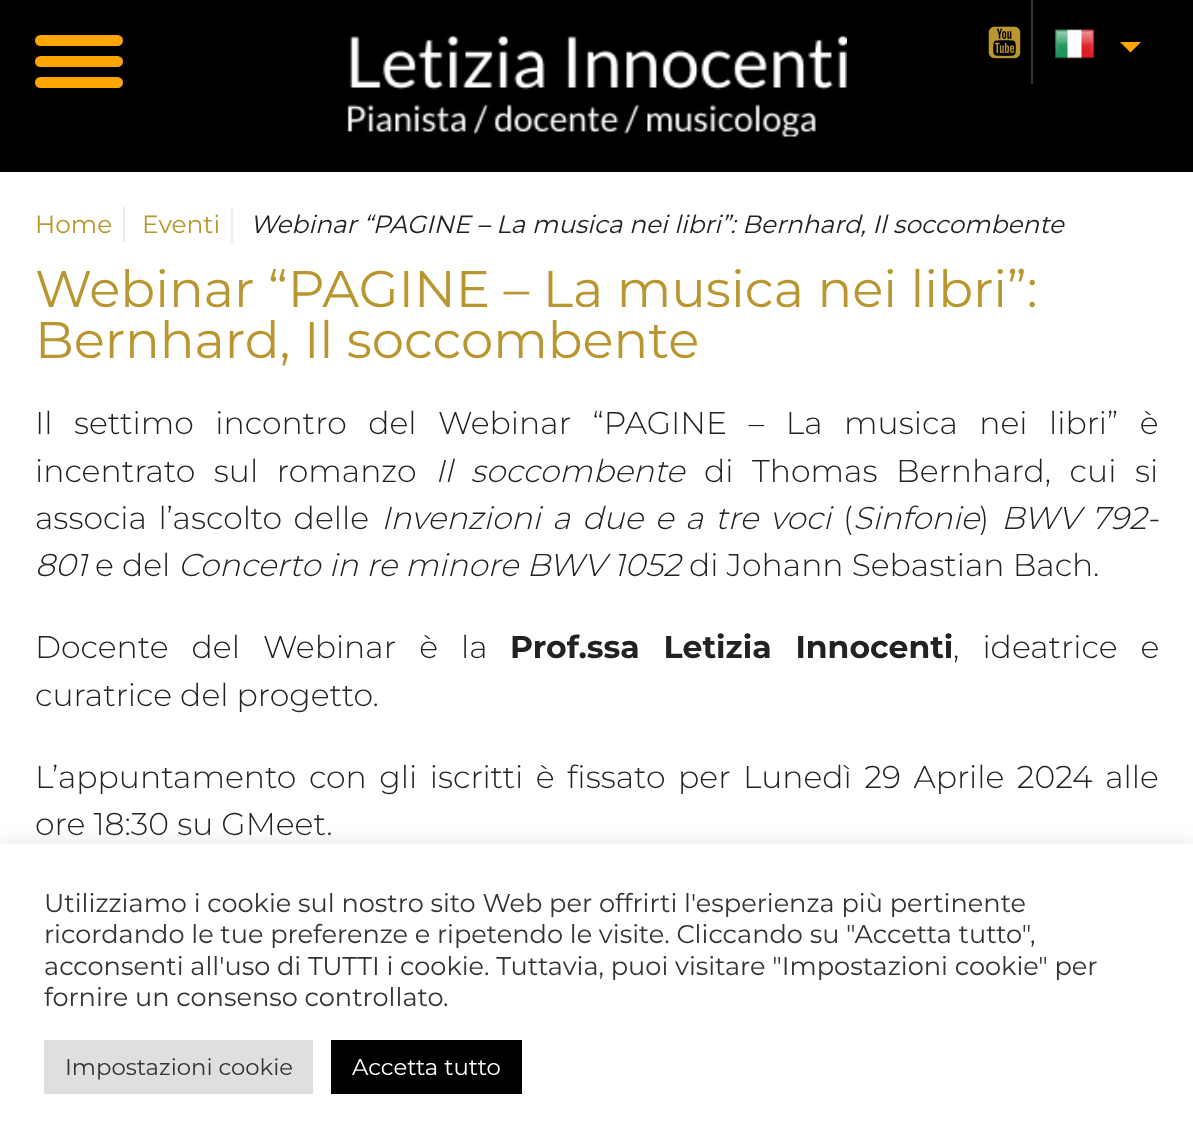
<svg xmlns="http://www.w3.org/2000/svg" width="1193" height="1145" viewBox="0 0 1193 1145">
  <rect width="100%" height="100%" fill="rgb(255,255,255)"/>
  <rect x="0" y="0" width="1193" height="172" fill="rgb(0,0,0)"/>
  <rect x="35" y="35" width="88" height="11" rx="5.5" fill="rgb(255,165,0)"/>
  <rect x="35" y="56" width="88" height="11" rx="5.5" fill="rgb(255,165,0)"/>
  <rect x="35" y="77" width="88" height="11" rx="5.5" fill="rgb(255,165,0)"/>
  <image x="347" y="35" width="500" height="102" href="pic1.png"/>
  <image x="988" y="26" width="33" height="33" href="pic2.png"/>
  <rect x="1031" y="0" width="2" height="84" fill="rgb(51,51,51)"/>
  <image x="1054" y="29" width="41" height="30" href="pic3.png"/>
  <path d="M1120 42H1141L1130.5 52.5Z" fill="rgb(255,165,0)"/>
  <rect x="123" y="207" width="2" height="35" fill="rgb(234,234,234)"/>
  <text x="35" y="233" font-family="Montserrat" font-size="24.9" fill="rgb(185,150,47)">Home</text>
  <rect x="231" y="207" width="2" height="35" fill="rgb(234,234,234)"/>
  <text x="142" y="233" font-family="Montserrat" font-size="24.9" fill="rgb(185,150,47)">Eventi</text>
  <text x="250" y="233" font-family="Montserrat" font-size="24.9" font-style="italic" fill="rgb(34,34,34)">Webinar “PAGINE – La musica nei libri”: Bernhard, Il soccombente</text>
  <g font-family="Montserrat" font-size="51.4" fill="rgb(185,150,47)">
    <text>
      <tspan x="35" y="307">Webinar “PAGINE – La musica nei libri”:</tspan>
      <tspan x="35" y="358">Bernhard, Il soccombente</tspan>
    </text>
  </g>
  <g font-family="Montserrat" font-size="31.5" font-weight="300" fill="rgb(34,34,34)">
    <text>
      <tspan x="35" y="434" word-spacing="13.4">Il settimo incontro del Webinar “PAGINE – La musica nei libri” è</tspan>
      <tspan x="35" y="482" word-spacing="10.5">incentrato sul romanzo</tspan>
    </text>
  </g>
  <text x="435" y="482" word-spacing="10" font-family="Montserrat" font-size="31.5" font-weight="300" font-style="italic" fill="rgb(34,34,34)">Il soccombente</text>
  <g font-family="Montserrat" font-size="31.5" font-weight="300" fill="rgb(34,34,34)">
    <text x="704" y="482" word-spacing="10.5">di Thomas Bernhard, cui si</text>
    <text x="35" y="529" word-spacing="3.5">associa l’ascolto d</text>
    <text x="315" y="529">elle</text>
  </g>
  <text x="381" y="529" word-spacing="3.5" font-family="Montserrat" font-size="31.5" font-weight="300" font-style="italic" fill="rgb(34,34,34)">Invenzioni a due e a tre voci</text>
  <text x="843" y="529" font-family="Montserrat" font-size="31.5" font-weight="300" fill="rgb(34,34,34)">(</text>
  <text x="853" y="529" font-family="Montserrat" font-size="31.5" font-weight="300" font-style="italic" fill="rgb(34,34,34)">Sinfonie</text>
  <text x="979" y="529" font-family="Montserrat" font-size="31.5" font-weight="300" fill="rgb(34,34,34)">)</text>
  <g font-family="Montserrat" font-size="31.5" font-weight="300" font-style="italic" fill="rgb(34,34,34)">
    <text x="1001" y="529" word-spacing="3.5">BWV 792-</text>
    <text x="35" y="576">801</text>
  </g>
  <text x="95" y="576" font-family="Montserrat" font-size="31.5" font-weight="300" fill="rgb(34,34,34)">e del</text>
  <text x="178" y="576" font-family="Montserrat" font-size="31.5" font-weight="300" font-style="italic" fill="rgb(34,34,34)">Concerto in re minore BWV 1052</text>
  <g font-family="Montserrat" font-size="31.5" font-weight="300" fill="rgb(34,34,34)">
    <text x="689" y="576">di Johann Sebastian Bach.</text>
    <text x="35" y="658" word-spacing="15">Docente del Webinar è la</text>
  </g>
  <text x="510" y="658" word-spacing="15" font-family="Montserrat" font-size="31.5" font-weight="bold" fill="rgb(34,34,34)">Prof.ssa Letizia Innocenti</text>
  <g font-family="Montserrat" font-size="31.5" font-weight="300" fill="rgb(34,34,34)">
    <text x="953" y="658" word-spacing="15">, ideatrice e</text>
    <text x="35" y="706">curatrice del progetto.</text>
    <text>
      <tspan x="35" y="788" word-spacing="4.4">L’appuntamento con gli iscritti è fissato per Lunedì 29 Aprile 2024 alle</tspan>
      <tspan x="35" y="835">ore 18:30 su GMeet.</tspan>
    </text>
  </g>
  <rect x="0" y="842" width="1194" height="303" fill="rgba(172,171,171,0.3)" filter="blur(9px)"/>
  <rect x="0" y="844" width="1193" height="301" fill="rgb(255,255,255)"/>
  <g font-family="Montserrat" font-size="25.65" fill="rgb(51,51,51)">
    <text>
      <tspan x="44" y="912">Utilizziamo i cookie sul nostro sito Web per offrirti l'esperienza più pertinente</tspan>
      <tspan x="44" y="943">ricordando le tue preferenze e ripetendo le visite. Cliccando su "Accetta tutto",</tspan>
      <tspan x="44" y="975">acconsenti all'uso di TUTTI i cookie. Tuttavia, puoi visitare "Impostazioni cookie" per</tspan>
      <tspan x="44" y="1006">fornire un consenso controllato.</tspan>
    </text>
  </g>
  <rect x="44" y="1040" width="269" height="54" fill="rgb(222,223,224)"/>
  <text x="65" y="1075" font-family="Montserrat" font-size="22.75" fill="rgb(51,51,51)">Impostazioni cookie</text>
  <rect x="331" y="1040" width="191" height="54" fill="rgb(0,0,0)"/>
  <text x="352" y="1075" font-family="Montserrat" font-size="22.75" fill="rgb(255,255,255)">Accetta tutto</text>
</svg>
